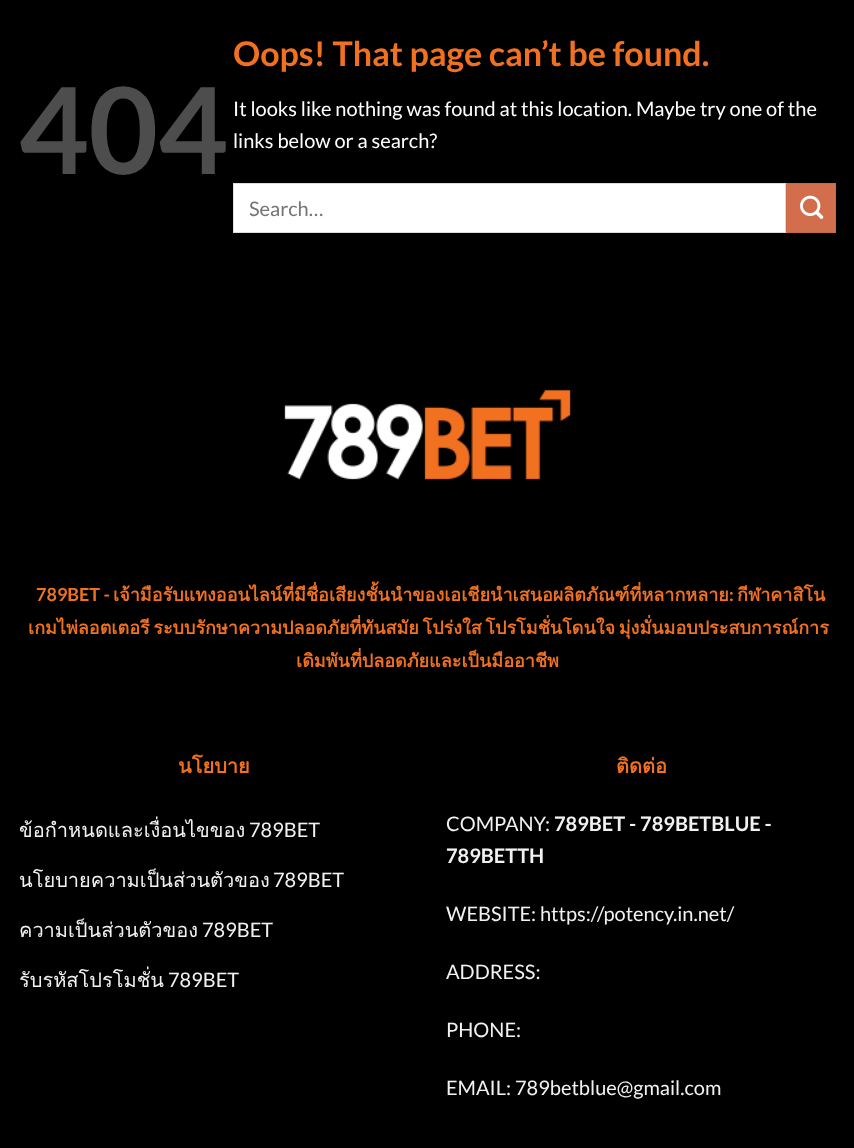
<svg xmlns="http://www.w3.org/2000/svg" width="854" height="1148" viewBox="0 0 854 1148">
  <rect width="100%" height="100%" fill="rgb(0,0,0)"/>
  <text x="19" y="174" font-family="Lato" font-size="120" font-weight="bold" fill="rgb(77,77,77)">404</text>
  <text x="233" y="66" font-family="Lato" font-size="34" font-weight="bold" fill="rgb(242,113,33)">Oops! That page can’t be found.</text>
  <g font-family="Lato" font-size="20" fill="rgb(255,255,255)">
    <text>
      <tspan x="233" y="116">It looks like nothing was found at this location. Maybe try one of the</tspan>
      <tspan x="233" y="148">links below or a search?</tspan>
    </text>
  </g>
  <rect x="233.5" y="183.5" width="552" height="49" fill="rgb(255,255,255)" stroke="rgb(221,221,221)"/>
  <text x="249" y="216" font-family="Lato" font-size="20" fill="rgb(117,117,117)">Search…</text>
  <rect x="786.5" y="183.5" width="49" height="49" fill="rgb(210,110,75)" stroke="rgb(200,105,71)"/>
  <image x="800" y="195" width="24" height="24" href="pic1.png"/>
  <image x="284" y="389" width="287" height="91" href="pic2.png"/>
  <text x="36" y="601" font-family="Lato" font-size="18" font-weight="bold" fill="rgb(242,113,33)">789BET -</text>
  <text x="113" y="601" font-family="Loma" font-size="18" font-weight="bold" fill="rgb(242,113,33)">เจ้ามือรับแทงออนไลน์ที่มีชื่อเสียงชั้นนําของเอเชียนําเสนอผลิตภัณฑ์ที่หลากหลาย</text>
  <text x="729" y="601" font-family="Lato" font-size="18" font-weight="bold" fill="rgb(242,113,33)">:</text>
  <g font-family="Loma" font-size="18" font-weight="bold" fill="rgb(242,113,33)">
    <text x="737" y="601">กีฬาคาสิโน</text>
    <text x="28" y="634" word-spacing="-2.5">เกมไพ่ลอตเตอรี ระบบรักษาความปลอดภัยที่ทันสมัย โปร่งใส โปรโมชั่นโดนใจ มุ่งมั่นมอบประสบการณ์การ</text>
    <text x="296" y="667">เดิมพันที่ปลอดภัยและเป็นมืออาชีพ</text>
  </g>
  <text x="178" y="773" font-family="Loma" font-size="20" font-weight="bold" fill="rgb(242,113,33)">นโยบาย</text>
  <text x="19" y="837" font-family="Loma" font-size="20" fill="rgb(241,241,241)">ข้อกำหนดและเงื่อนไขของ</text>
  <text x="249" y="837" font-family="Lato" font-size="20" fill="rgb(241,241,241)">789BET</text>
  <text x="19" y="887" font-family="Loma" font-size="20" fill="rgb(241,241,241)">นโยบายความเป็นส่วนตัวของ</text>
  <text x="273" y="887" font-family="Lato" font-size="20" fill="rgb(241,241,241)">789BET</text>
  <text x="19" y="937" font-family="Loma" font-size="20" fill="rgb(241,241,241)">ความเป็นส่วนตัวของ</text>
  <text x="202" y="937" font-family="Lato" font-size="20" fill="rgb(241,241,241)">789BET</text>
  <text x="19" y="987" font-family="Loma" font-size="20" fill="rgb(241,241,241)">รับรหัสโปรโมชั่น</text>
  <text x="168" y="987" font-family="Lato" font-size="20" fill="rgb(241,241,241)">789BET</text>
  <text x="616" y="773" font-family="Loma" font-size="20" font-weight="bold" fill="rgb(242,113,33)">ติดต่อ</text>
  <text x="446" y="831" font-family="Lato" font-size="20" fill="rgb(241,241,241)">COMPANY:</text>
  <g font-family="Lato" font-size="20" font-weight="bold" fill="rgb(241,241,241)">
    <text x="554" y="831">789BET - 789BETBLUE -</text>
    <text x="446" y="863">789BETTH</text>
  </g>
  <g font-family="Lato" font-size="20" fill="rgb(241,241,241)">
    <text x="446" y="921">WEBSITE: https://potency.in.net/</text>
    <text x="446" y="979">ADDRESS:</text>
    <text x="446" y="1037">PHONE:</text>
    <text x="446" y="1095">EMAIL: 789betblue@gmail.com</text>
  </g>
</svg>
